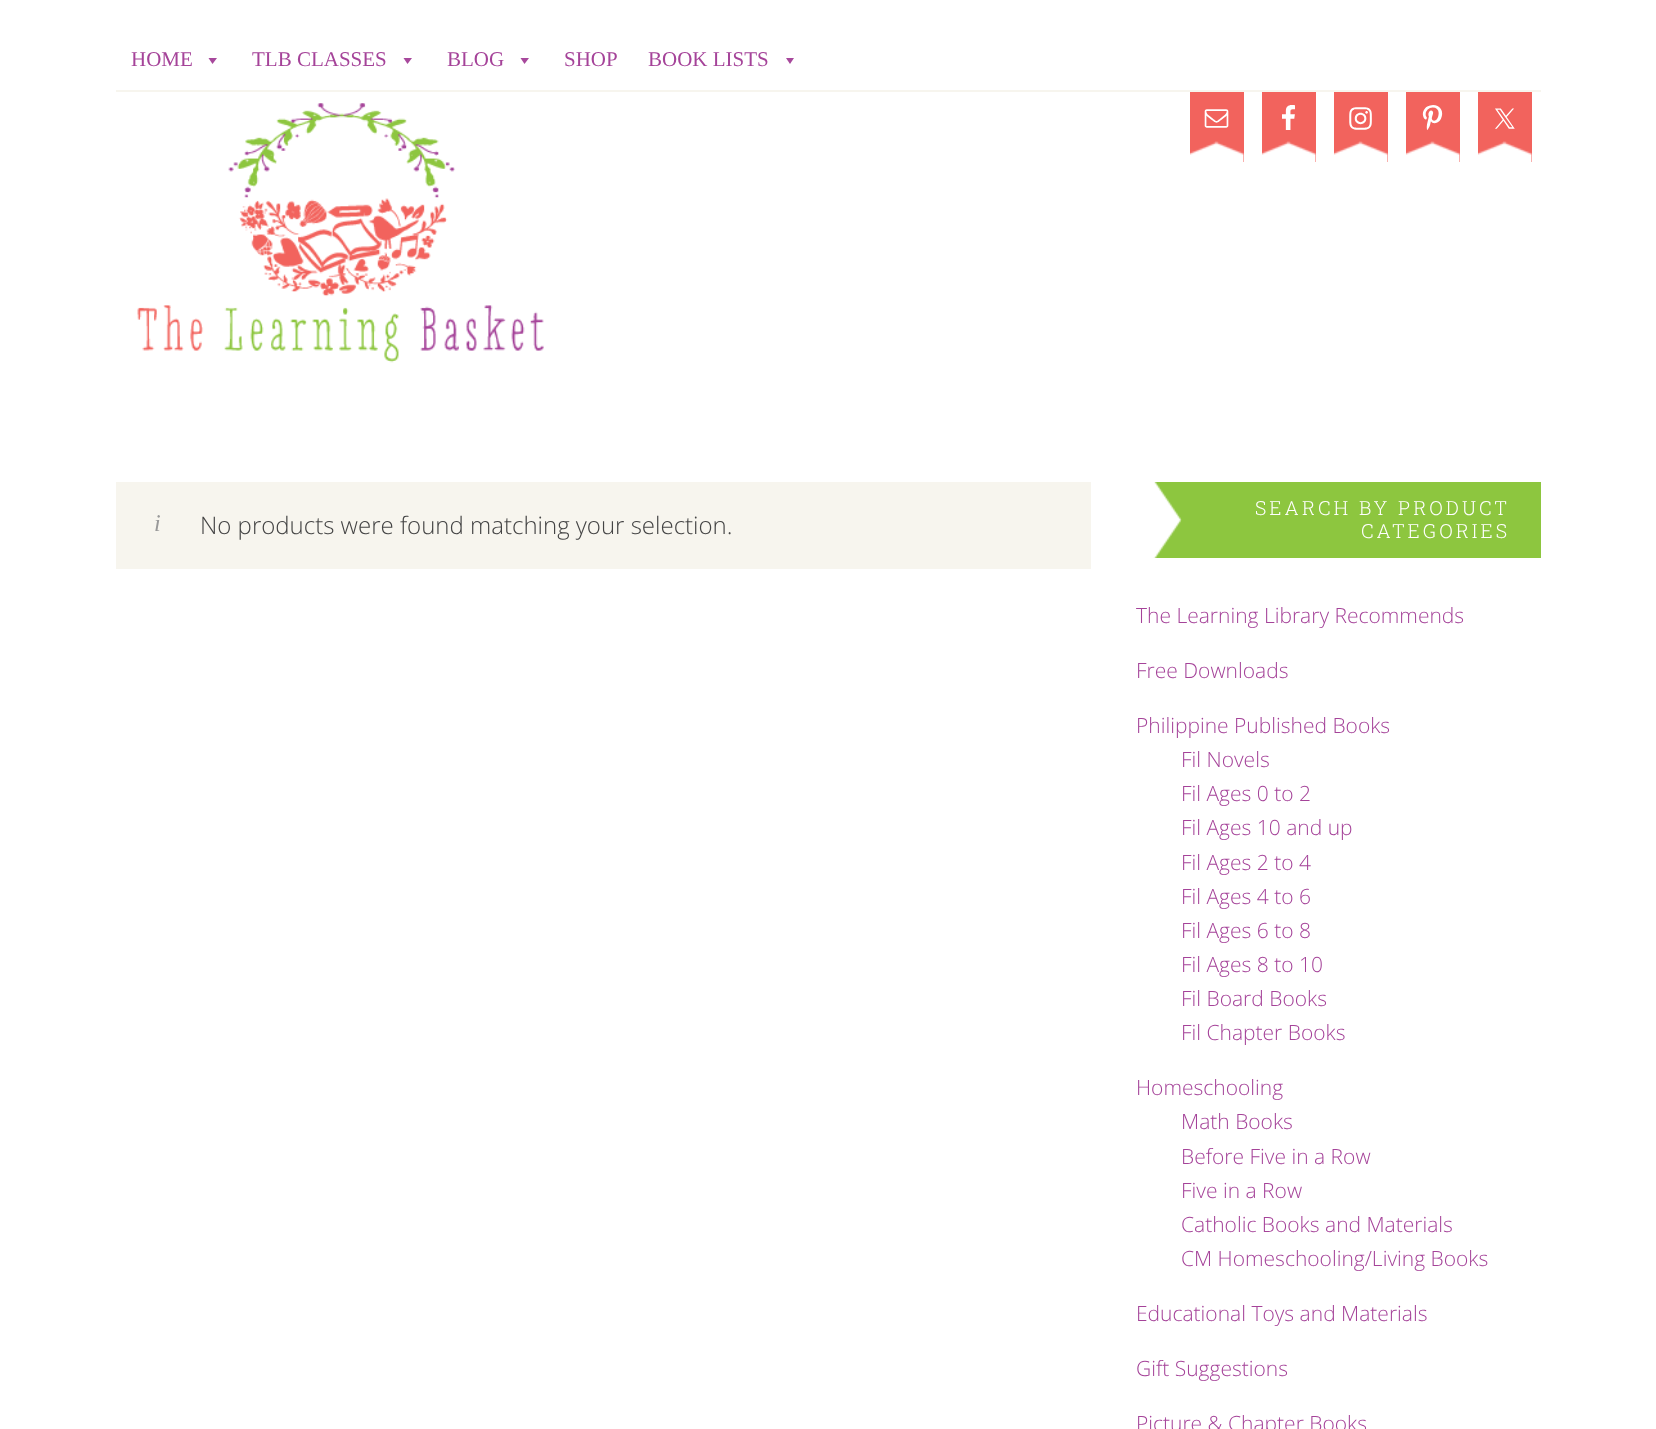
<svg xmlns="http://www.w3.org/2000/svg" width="1656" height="1429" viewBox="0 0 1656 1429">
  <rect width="100%" height="100%" fill="rgb(255,255,255)"/>
  <rect x="116" y="90" width="1425" height="2" fill="rgb(247,245,238)"/>
  <text x="131" y="66" font-family="Liberation Serif" font-size="21" fill="rgb(165,67,153)">HOME</text>
  <path d="M217 58L212.5 64L208.5 58Z" fill="rgb(167,72,156)"/>
  <text x="252" y="66" font-family="Liberation Serif" font-size="21" fill="rgb(165,67,153)">TLB CLASSES</text>
  <path d="M412 58L407.5 64L403.5 58Z" fill="rgb(167,72,156)"/>
  <text x="447" y="66" font-family="Liberation Serif" font-size="21" fill="rgb(165,67,153)">BLOG</text>
  <path d="M529 58L524.5 64L520.5 58Z" fill="rgb(167,72,156)"/>
  <g font-family="Liberation Serif" font-size="21" fill="rgb(165,67,153)">
    <text x="564" y="66">SHOP</text>
    <text x="648" y="66">BOOK LISTS</text>
  </g>
  <path d="M794 58L790 64L786 58Z" fill="rgb(167,72,156)"/>
  <image x="137" y="103" width="407" height="260" href="pic1.png"/>
  <rect x="1190" y="92" width="54" height="70" fill="rgb(242,99,93)"/>
  <image x="1190" y="141" width="54" height="21" href="pic2.png"/>
  <image x="1204" y="109" width="25" height="19" href="pic3.png"/>
  <rect x="1262" y="92" width="54" height="70" fill="rgb(242,99,93)"/>
  <image x="1262" y="141" width="54" height="21" href="pic4.png"/>
  <image x="1282" y="105" width="13" height="25" href="pic5.png"/>
  <rect x="1334" y="92" width="54" height="70" fill="rgb(242,99,93)"/>
  <image x="1334" y="141" width="54" height="21" href="pic2.png"/>
  <image x="1349" y="107" width="23" height="23" href="pic6.png"/>
  <rect x="1406" y="92" width="54" height="70" fill="rgb(242,99,93)"/>
  <image x="1406" y="141" width="54" height="21" href="pic2.png"/>
  <image x="1422" y="105" width="21" height="25" href="pic7.png"/>
  <rect x="1478" y="92" width="54" height="70" fill="rgb(242,99,93)"/>
  <image x="1478" y="141" width="54" height="21" href="pic8.png"/>
  <image x="1495" y="108" width="20" height="21" href="pic9.png"/>
  <rect x="116" y="482" width="975" height="87" fill="rgb(247,245,238)"/>
  <text x="154" y="531" font-family="Liberation Serif" font-size="24" font-style="italic" fill="rgb(153,153,153)">i</text>
  <text x="200" y="534" font-family="Open Sans" font-size="24" font-weight="300" fill="rgb(68,68,68)">No products were found matching your selection.</text>
  <rect x="1153" y="482" width="388" height="76" fill="rgb(141,198,63)"/>
  <image x="1136" y="482" width="46" height="76" href="pic10.png"/>
  <g font-family="Roboto Slab" font-size="19.5" font-weight="300" letter-spacing="3" fill="rgb(255,255,255)">
    <text x="1255" y="515">SEARCH BY PRODUCT</text>
    <text x="1361" y="538">CATEGORIES</text>
  </g>
  <g font-family="Open Sans" font-size="21" font-weight="300" fill="rgb(165,67,153)">
    <text x="1136" y="623">The Learning Library Recommends</text>
    <text x="1136" y="678">Free Downloads</text>
    <text x="1136" y="733">Philippine Published Books</text>
    <text>
      <tspan x="1181" y="767">Fil Novels</tspan>
      <tspan x="1181" y="801">Fil Ages 0 to 2</tspan>
      <tspan x="1181" y="835">Fil Ages 10 and up</tspan>
      <tspan x="1181" y="870">Fil Ages 2 to 4</tspan>
      <tspan x="1181" y="904">Fil Ages 4 to 6</tspan>
      <tspan x="1181" y="938">Fil Ages 6 to 8</tspan>
      <tspan x="1181" y="972">Fil Ages 8 to 10</tspan>
      <tspan x="1181" y="1006">Fil Board Books</tspan>
      <tspan x="1181" y="1040">Fil Chapter Books</tspan>
    </text>
    <text x="1136" y="1095">Homeschooling</text>
    <text>
      <tspan x="1181" y="1129">Math Books</tspan>
      <tspan x="1181" y="1164">Before Five in a Row</tspan>
      <tspan x="1181" y="1198">Five in a Row</tspan>
      <tspan x="1181" y="1232">Catholic Books and Materials</tspan>
      <tspan x="1181" y="1266">CM Homeschooling/Living Books</tspan>
    </text>
    <text x="1136" y="1321">Educational Toys and Materials</text>
    <text x="1136" y="1376">Gift Suggestions</text>
    <text x="1136" y="1431">Picture &amp; Chapter Books</text>
  </g>
</svg>
